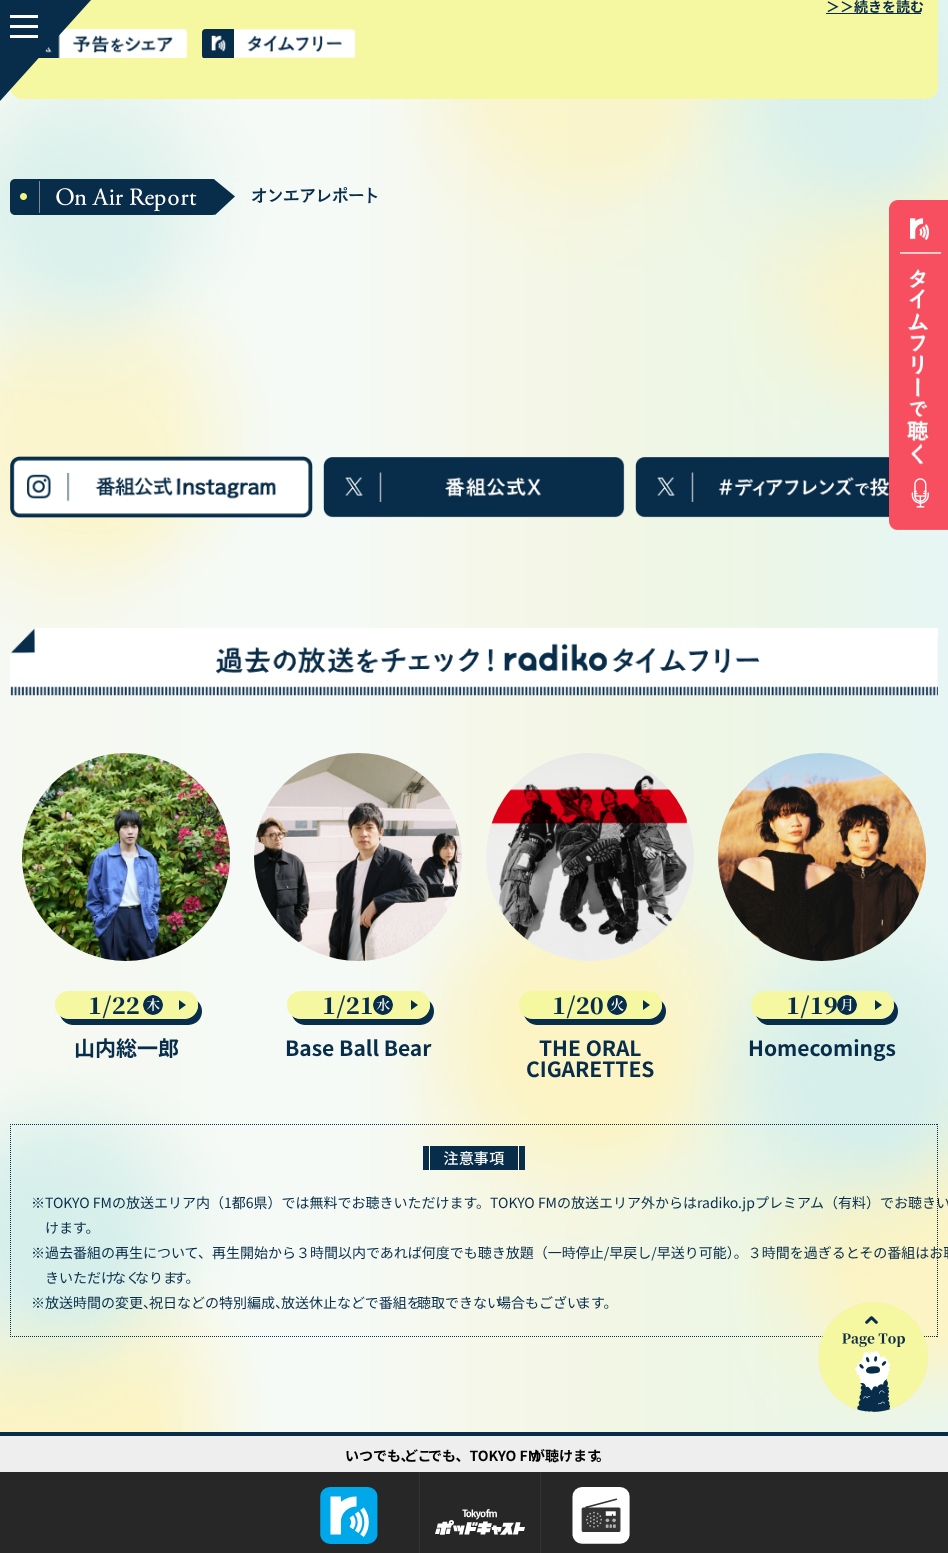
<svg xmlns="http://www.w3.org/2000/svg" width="948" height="1553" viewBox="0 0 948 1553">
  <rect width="100%" height="100%" fill="rgb(255,255,255)"/>
  <image x="0" y="0" width="948" height="1432" href="pic1.png"/>
  <path d="M10-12H938V87C938 93.5 932.5 99 926 99H22C15.5 99 10 93.5 10 87Z" fill="rgb(246,247,161)"/>
  <image x="38" y="29" width="149" height="29" href="pic2.png"/>
  <path d="M0 0V101L91 0Z" fill="rgb(7,45,74)"/>
  <rect x="10" y="15" width="28" height="3" fill="rgb(255,255,255)"/>
  <rect x="10" y="25" width="28" height="3" fill="rgb(255,255,255)"/>
  <rect x="10" y="35" width="28" height="3" fill="rgb(255,255,255)"/>
  <rect x="826" y="13" width="95" height="1" fill="rgb(7,45,74)"/>
  <text x="826" y="12" font-family="Noto Sans JP" font-size="14" font-weight="bold" fill="rgb(7,45,74)">＞＞続きを読む</text>
  <image x="202" y="29" width="153" height="29" href="pic3.png"/>
  <image x="10" y="179" width="368" height="36" href="pic4.png"/>
  <image x="10" y="456" width="303" height="62" href="pic5.png"/>
  <image x="323" y="457" width="302" height="61" href="pic6.png"/>
  <image x="635" y="457" width="254" height="61" href="pic7.png"/>
  <image x="889" y="200" width="59" height="330" href="pic8.png"/>
  <image x="911" y="478" width="18" height="30" href="pic9.png"/>
  <image x="10" y="627" width="928" height="69" href="pic10.png"/>
  <image x="22" y="753" width="208" height="208" href="pic11.png"/>
  <path d="M60 1015C62 1021 67 1025 73 1025H188C196 1025 202 1019 202 1011C202 1007 200 1003 197 1001L198 1005C198 1013 192 1019 184 1019H69C65 1019 62 1018 60 1015Z" fill="rgb(7,45,74)"/>
  <rect x="55" y="991" width="143" height="28" rx="14" fill="rgb(246,247,161)"/>
  <text x="88" y="1014" font-family="Noto Serif JP" font-size="23" font-weight="900" fill="rgb(7,45,74)">1/22</text>
  <image x="143" y="995" width="20" height="20" href="pic12.png"/>
  <path d="M179 1010V1000L186 1005Z" fill="rgb(7,45,74)"/>
  <text x="74" y="1056" font-family="Noto Sans JP" font-size="21" font-weight="bold" fill="rgb(7,45,74)">山内総一郎</text>
  <image x="254" y="753" width="208" height="208" href="pic13.png"/>
  <path d="M292 1015C294 1021 299 1025 305 1025H420C428 1025 434 1019 434 1011C434 1007 432 1003 429 1001L430 1005C430 1013 424 1019 416 1019H301C297 1019 294 1018 292 1015Z" fill="rgb(7,45,74)"/>
  <rect x="287" y="991" width="143" height="28" rx="14" fill="rgb(246,247,161)"/>
  <text x="322" y="1014" font-family="Noto Serif JP" font-size="23" font-weight="900" fill="rgb(7,45,74)">1/21</text>
  <image x="373" y="995" width="20" height="20" href="pic14.png"/>
  <path d="M411 1010V1000L418 1005Z" fill="rgb(7,45,74)"/>
  <text x="285" y="1056" font-family="Noto Sans JP" font-size="21" font-weight="bold" fill="rgb(7,45,74)">Base Ball Bear</text>
  <image x="486" y="753" width="208" height="208" href="pic15.png"/>
  <path d="M524 1015C526 1021 531 1025 537 1025H652C660 1025 666 1019 666 1011C666 1007 664 1003 661 1001L662 1005C662 1013 656 1019 648 1019H533C529 1019 526 1018 524 1015Z" fill="rgb(7,45,74)"/>
  <rect x="519" y="991" width="143" height="28" rx="14" fill="rgb(246,247,161)"/>
  <text x="552" y="1014" font-family="Noto Serif JP" font-size="23" font-weight="900" fill="rgb(7,45,74)">1/20</text>
  <image x="607" y="995" width="20" height="20" href="pic16.png"/>
  <path d="M643 1010V1000L650 1005Z" fill="rgb(7,45,74)"/>
  <g font-family="Noto Sans JP" font-size="21" font-weight="bold" fill="rgb(7,45,74)">
    <text x="539" y="1056">THE ORAL</text>
    <text x="526" y="1077">CIGARETTES</text>
  </g>
  <image x="718" y="753" width="208" height="208" href="pic17.png"/>
  <path d="M756 1015C758 1021 763 1025 769 1025H884C892 1025 898 1019 898 1011C898 1007 896 1003 893 1001L894 1005C894 1013 888 1019 880 1019H765C761 1019 758 1018 756 1015Z" fill="rgb(7,45,74)"/>
  <rect x="751" y="991" width="143" height="28" rx="14" fill="rgb(246,247,161)"/>
  <text x="786" y="1014" font-family="Noto Serif JP" font-size="23" font-weight="900" fill="rgb(7,45,74)">1/19</text>
  <image x="837" y="995" width="20" height="20" href="pic18.png"/>
  <path d="M875 1010V1000L882 1005Z" fill="rgb(7,45,74)"/>
  <text x="748" y="1056" font-family="Noto Sans JP" font-size="21" font-weight="bold" fill="rgb(7,45,74)">Homecomings</text>
  <path d="M10 1124.5H938" fill="none" stroke="rgb(7,45,74)" stroke-dasharray="1 1"/>
  <path d="M937.5 1124V1337" fill="none" stroke="rgb(7,45,74)" stroke-dasharray="1 1"/>
  <path d="M10 1336.5H938" fill="none" stroke="rgb(7,45,74)" stroke-dasharray="1 1"/>
  <path d="M10.5 1124V1337" fill="none" stroke="rgb(7,45,74)" stroke-dasharray="1 1"/>
  <image x="423" y="1146" width="102" height="24" href="pic19.png"/>
  <text x="31" y="1208" font-family="Noto Sans JP" font-size="14" fill="rgb(7,45,74)">※</text>
  <text x="45" y="1208" font-family="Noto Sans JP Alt" font-size="14" fill="rgb(7,45,74)">TOKYO FMの放送エリア内（1都6県）では無料でお聴きいただけます。TOKYO FMの放送エリア外からはradiko.jpプレミアム（有料）でお聴きいただ</text>
  <g font-family="Noto Sans JP" font-size="14" fill="rgb(7,45,74)">
    <text x="45" y="1233">けます。</text>
    <text x="31" y="1258">※</text>
  </g>
  <text x="45" y="1258" font-family="Noto Sans JP Alt" font-size="14" fill="rgb(7,45,74)">過去番組の再生について、再生開始から３時間以内であれば何度でも聴き放題（一時停止/早戻し/早送り可能）。３時間を過ぎるとその番組はお聴</text>
  <g font-family="Noto Sans JP" font-size="14" fill="rgb(7,45,74)">
    <text x="45" y="1283">きいただけ</text>
    <text x="112" y="1283">なく</text>
    <text x="135" y="1283">なりま</text>
    <text x="173" y="1283">す。</text>
    <text x="31" y="1308">※</text>
    <text x="45" y="1308">放送時間の変更、</text>
    <text x="149" y="1308">祝日などの特別編成、</text>
    <text x="281" y="1308">放送休止などで番組を</text>
    <text x="417" y="1308">聴取できない</text>
    <text x="497" y="1308">場合もござい</text>
    <text x="577" y="1308">ます。</text>
  </g>
  <image x="818" y="1302" width="110" height="110" href="pic20.png"/>
  <rect x="0" y="1432" width="948" height="4" fill="rgb(7,45,74)"/>
  <rect x="0" y="1472" width="948" height="81" fill="rgb(39,39,39)"/>
  <rect x="0" y="1436" width="948" height="36" fill="rgb(238,238,238)"/>
  <text x="345" y="1461" font-family="Noto Sans JP" font-size="14" font-weight="bold" fill="rgb(0,0,0)">いつでも、</text>
  <text x="404" y="1461" font-family="Noto Sans JP" font-size="14" font-weight="bold" fill="rgb(0,0,0)">どこ</text>
  <text x="428" y="1461" font-family="Noto Sans JP" font-size="14" font-weight="bold" fill="rgb(0,0,0)">でも、TOKYO FM</text>
  <text x="531" y="1461" font-family="Noto Sans JP" font-size="14" font-weight="bold" fill="rgb(0,0,0)">が聴けます</text>
  <text x="596" y="1461" font-family="Noto Sans JP" font-size="14" font-weight="bold" fill="rgb(0,0,0)">。</text>
  <image x="320" y="1487" width="58" height="57" href="pic21.png"/>
  <rect x="540" y="1472" width="1" height="81" fill="rgb(51,51,51)"/>
  <rect x="419" y="1472" width="1" height="81" fill="rgb(51,51,51)"/>
  <image x="435" y="1509" width="90" height="26" href="pic22.png"/>
  <image x="572" y="1487" width="58" height="57" href="pic23.png"/>
</svg>
